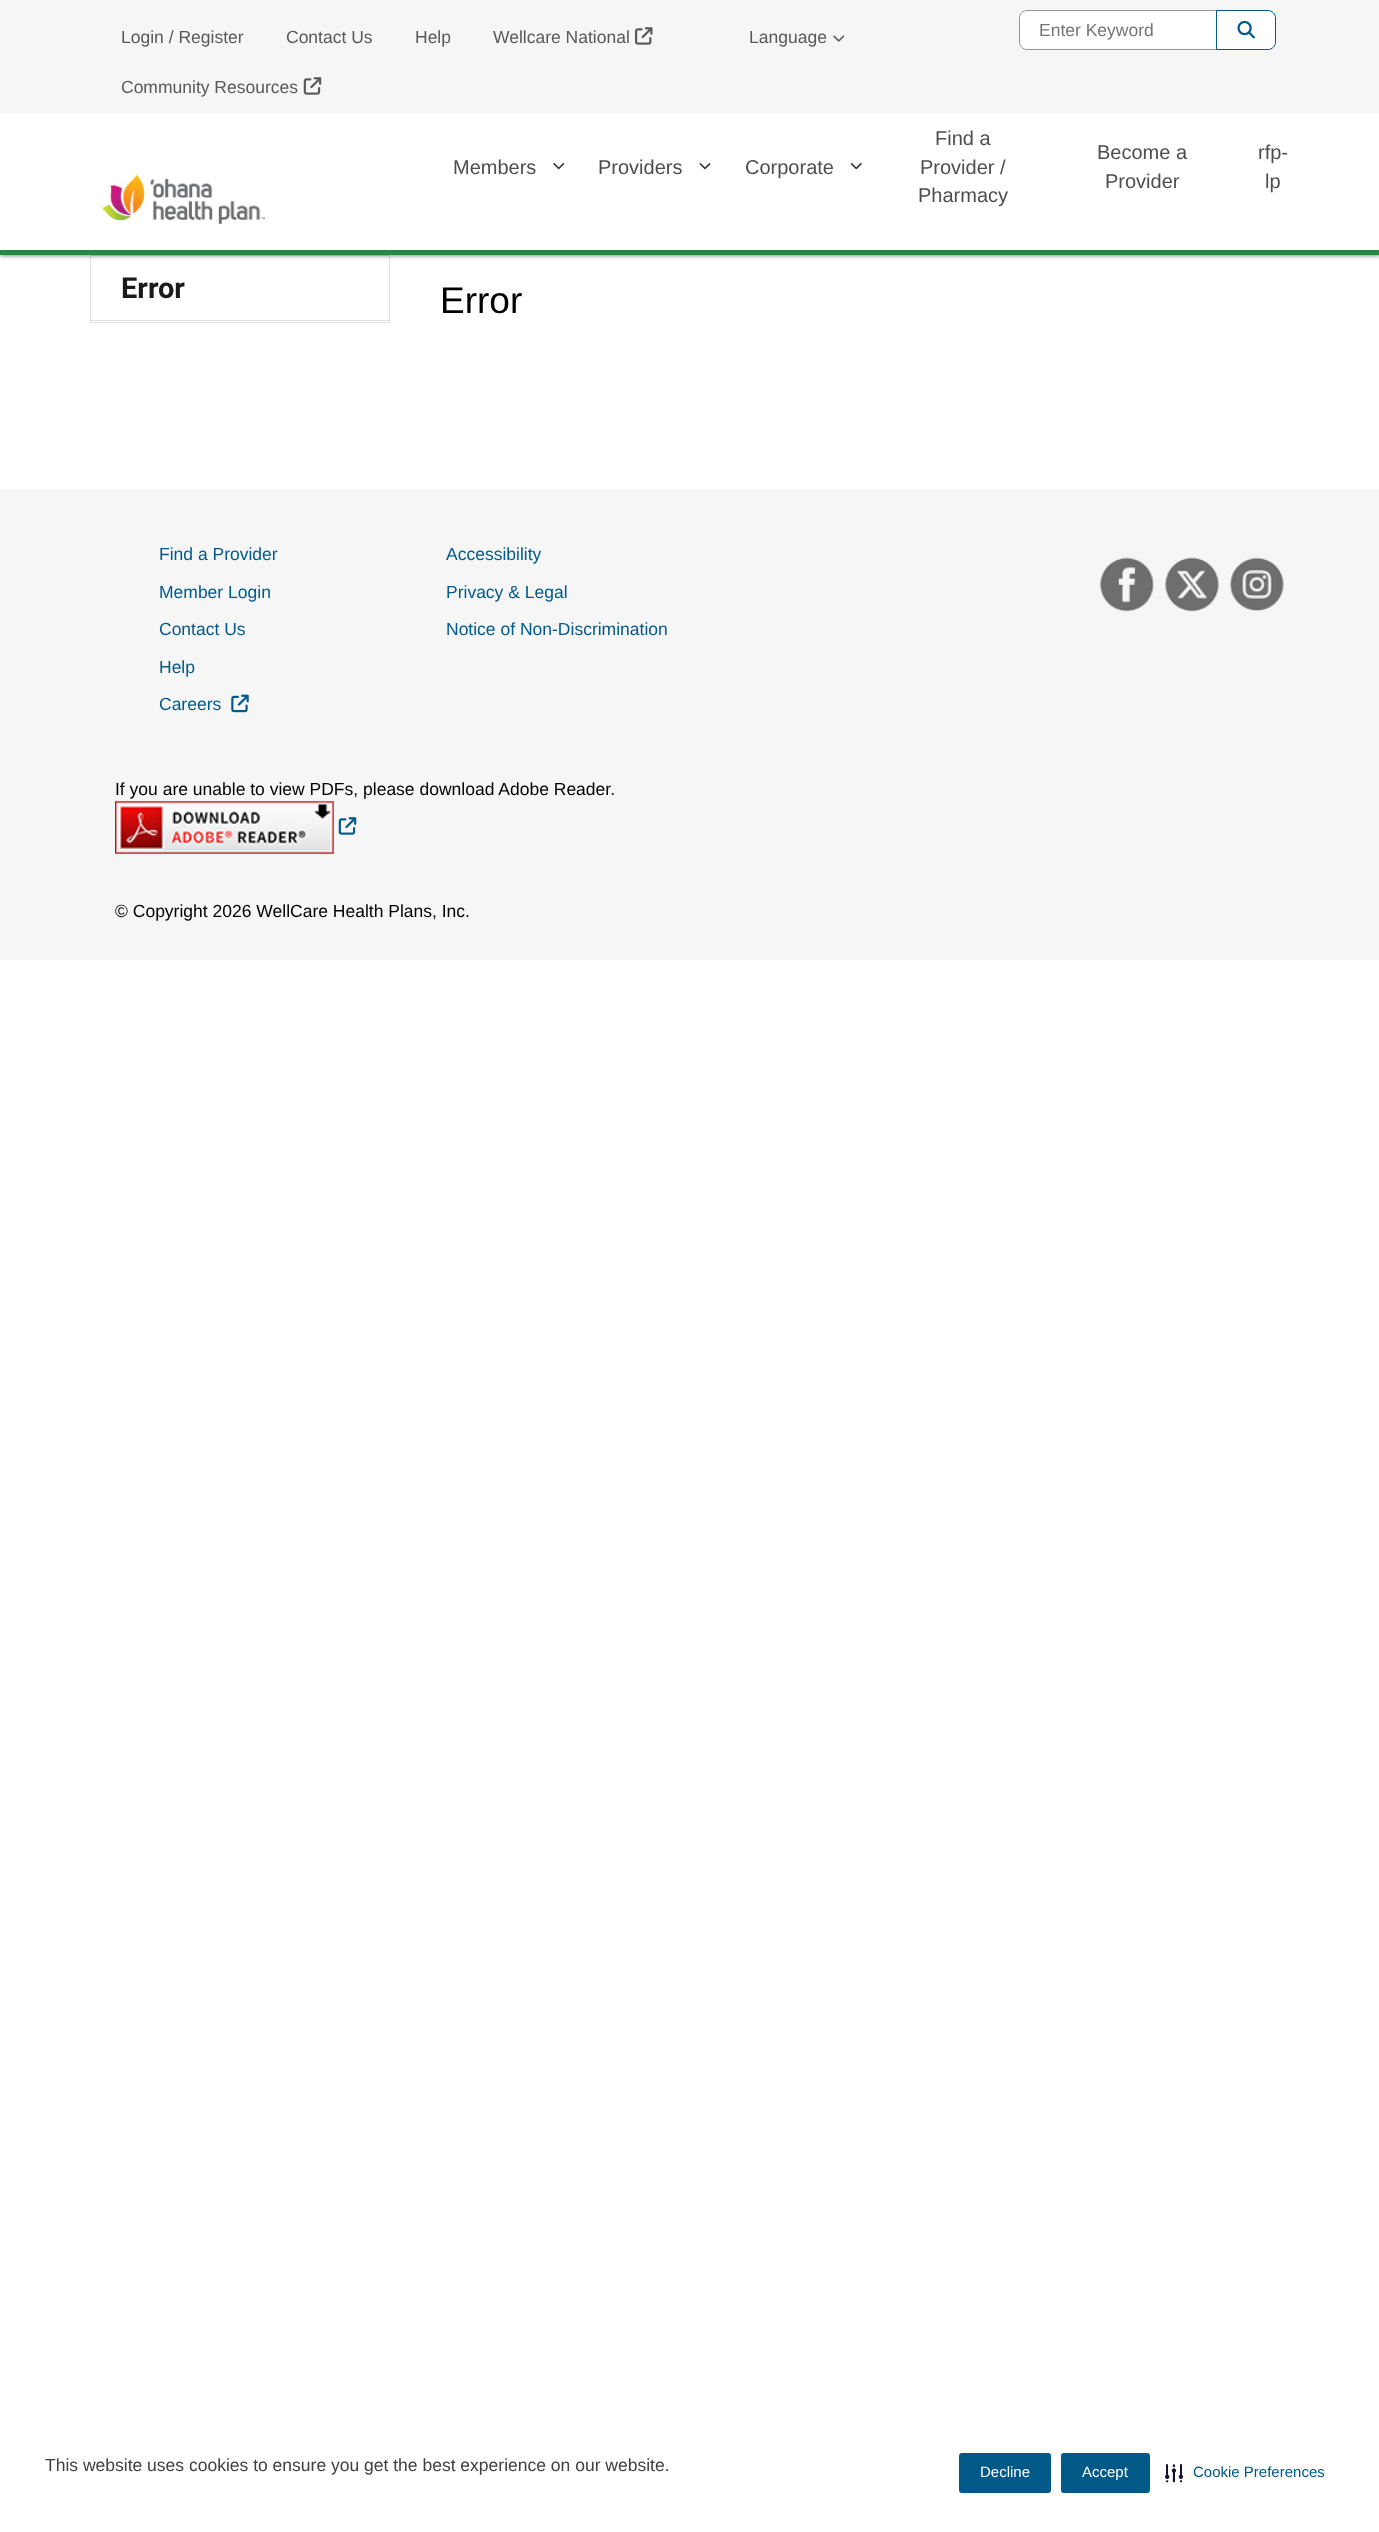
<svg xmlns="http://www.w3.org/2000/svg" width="1379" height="2532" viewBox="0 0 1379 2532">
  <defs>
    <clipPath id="clip1"><rect x="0" y="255" width="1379" height="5"/></clipPath>
  </defs>
  <rect width="100%" height="100%" fill="rgb(255,255,255)"/>
  <rect x="90.5" y="255.5" width="299" height="67" fill="none" stroke="rgb(224,224,224)"/>
  <g clip-path="url(#clip1)">
    <rect x="0" y="0" width="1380" height="255" fill="rgb(88,89,91)" filter="blur(2.5px)"/>
  </g>
  <rect x="0" y="250" width="1379" height="5" fill="rgb(44,134,65)"/>
  <rect x="0" y="0" width="1379" height="113" fill="rgb(246,246,246)"/>
  <g font-family="Liberation Sans" font-size="17.5" fill="rgb(88,89,91)">
    <text x="121" y="43">Login / Register</text>
    <text x="286" y="43">Contact Us</text>
    <text x="415" y="43">Help</text>
    <text x="493" y="43">Wellcare National</text>
  </g>
  <image x="635" y="27" width="18" height="18" href="pic1.png"/>
  <text x="121" y="93" font-family="Liberation Sans" font-size="17.5" fill="rgb(88,89,91)">Community Resources</text>
  <image x="303" y="77" width="19" height="18" href="pic2.png"/>
  <text x="749" y="43" font-family="Liberation Sans" font-size="17.5" fill="rgb(88,89,91)">Language</text>
  <image x="833" y="35" width="12" height="7" href="pic3.png"/>
  <path d="M1027 10.5H1220.5V49.5H1027C1023 49.5 1019.5 46 1019.5 42V18C1019.5 14 1023 10.5 1027 10.5Z" fill="rgb(255,255,255)" stroke="rgb(148,148,148)"/>
  <text x="1039" y="36" font-family="Liberation Sans" font-size="17.5" fill="rgb(117,117,117)">Enter Keyword</text>
  <path d="M1216.5 10.5H1268C1272 10.5 1275.5 14 1275.5 18V42C1275.5 46 1272 49.5 1268 49.5H1216.5Z" fill="rgb(255,255,255)" stroke="rgb(0,89,134)"/>
  <image x="1237" y="20" width="18" height="19" href="pic4.png"/>
  <image x="102" y="175" width="163" height="49" href="pic5.png"/>
  <text x="453" y="174" font-family="Liberation Sans" font-size="20" fill="rgb(77,77,77)">Members</text>
  <image x="553" y="163" width="12" height="7" href="pic6.png"/>
  <text x="598" y="174" font-family="Liberation Sans" font-size="20" fill="rgb(77,77,77)">Providers</text>
  <image x="699" y="163" width="12" height="7" href="pic7.png"/>
  <text x="745" y="174" font-family="Liberation Sans" font-size="20" fill="rgb(77,77,77)">Corporate</text>
  <image x="850" y="163" width="12" height="7" href="pic8.png"/>
  <g font-family="Liberation Sans" font-size="20" fill="rgb(77,77,77)">
    <text x="935" y="145">Find a</text>
    <text x="920" y="174">Provider /</text>
    <text x="918" y="202">Pharmacy</text>
    <text x="1097" y="159">Become a</text>
    <text x="1105" y="188">Provider</text>
    <text x="1258" y="159">rfp-</text>
    <text x="1265" y="188">lp</text>
  </g>
  <rect x="91" y="320" width="298" height="1" fill="rgb(224,224,224)"/>
  <text x="121" y="298" font-family="Roboto" font-size="29" font-weight="bold" fill="rgb(26,26,26)">Error</text>
  <text x="440" y="313" font-family="Liberation Sans" font-size="37" fill="rgb(0,0,0)">Error</text>
  <rect x="0" y="489" width="1379" height="471" fill="rgb(246,246,246)"/>
  <g font-family="Liberation Sans" font-size="17.5" fill="rgb(0,89,140)">
    <text x="159" y="560">Find a Provider</text>
    <text x="159" y="598">Member Login</text>
    <text x="159" y="635">Contact Us</text>
    <text x="159" y="673">Help</text>
    <text x="159" y="710">Careers</text>
  </g>
  <image x="231" y="694" width="18" height="19" href="pic9.png"/>
  <g font-family="Liberation Sans" font-size="17.5" fill="rgb(0,89,140)">
    <text x="446" y="560">Accessibility</text>
    <text x="446" y="598">Privacy &amp; Legal</text>
    <text x="446" y="635">Notice of Non-Discrimination</text>
  </g>
  <text x="115" y="795" font-family="Liberation Sans" font-size="17.5" fill="rgb(0,0,0)">If you are unable to view PDFs, please download Adobe Reader.</text>
  <image x="115" y="801" width="219" height="53" href="pic10.png"/>
  <image x="338" y="817" width="19" height="18" href="pic11.png"/>
  <image x="1100" y="557" width="54" height="55" href="pic12.png"/>
  <image x="1165" y="557" width="54" height="55" href="pic13.png"/>
  <image x="1230" y="557" width="54" height="55" href="pic14.png"/>
  <text x="115" y="917" font-family="Liberation Sans" font-size="17.5" fill="rgb(0,0,0)">© Copyright 2026 WellCare Health Plans, Inc.</text>
  <text x="45" y="2471" font-family="Liberation Sans" font-size="17.5" fill="rgb(64,64,64)">This website uses cookies to ensure you get the best experience on our website.</text>
  <rect x="959.5" y="2453.5" width="91" height="39" rx="2" fill="rgb(0,89,134)" stroke="rgb(0,89,134)"/>
  <text x="980" y="2477" font-family="Liberation Sans" font-size="15" fill="rgb(255,255,255)">Decline</text>
  <rect x="1061.5" y="2453.5" width="88" height="39" rx="2" fill="rgb(0,89,134)" stroke="rgb(0,89,134)"/>
  <text x="1082" y="2477" font-family="Liberation Sans" font-size="15" fill="rgb(255,255,255)">Accept</text>
  <image x="1165" y="2464" width="19" height="19" href="pic15.png"/>
  <text x="1193" y="2477" font-family="Liberation Sans" font-size="15" fill="rgb(0,89,134)">Cookie Preferences</text>
</svg>
